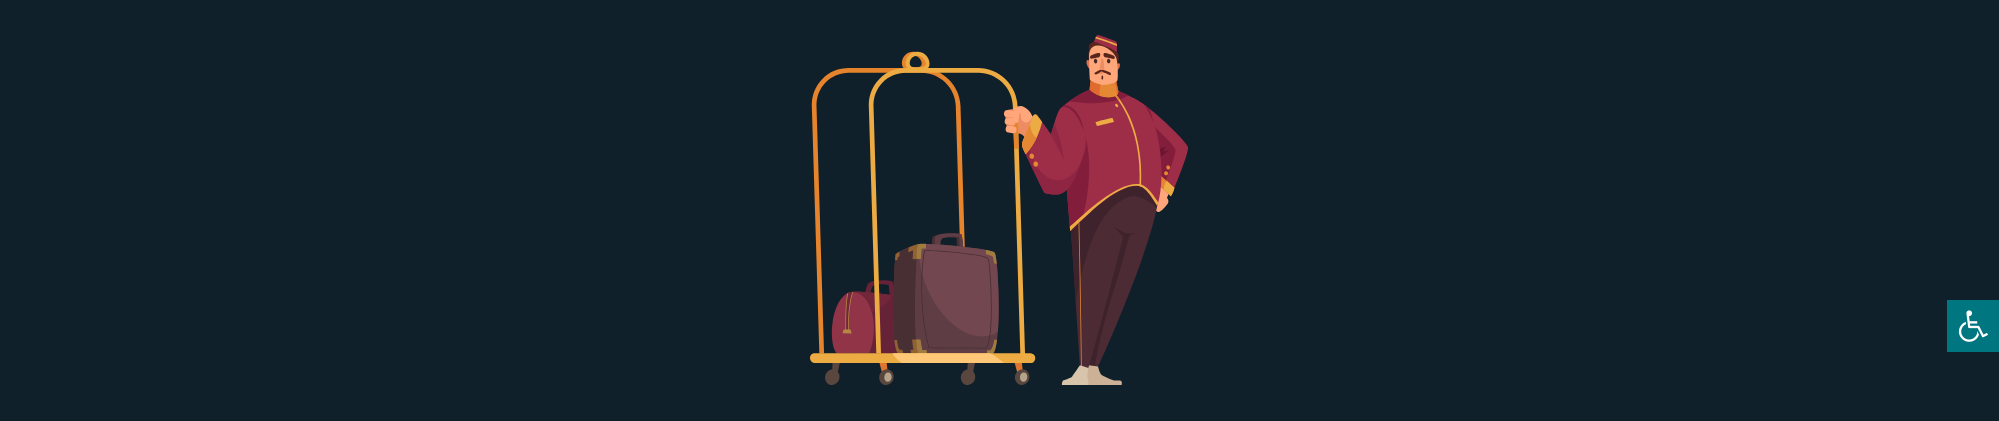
<svg xmlns="http://www.w3.org/2000/svg" width="1999" height="421" viewBox="0 0 1999 421">
  <rect width="100%" height="100%" fill="rgb(16,32,43)"/>
  <image x="810" y="35" width="378" height="350" href="pic1.png"/>
  <rect x="1947" y="300" width="52" height="52" fill="rgb(0,118,128)"/>
  <image x="1958" y="310" width="30" height="32" href="pic2.png"/>
</svg>
